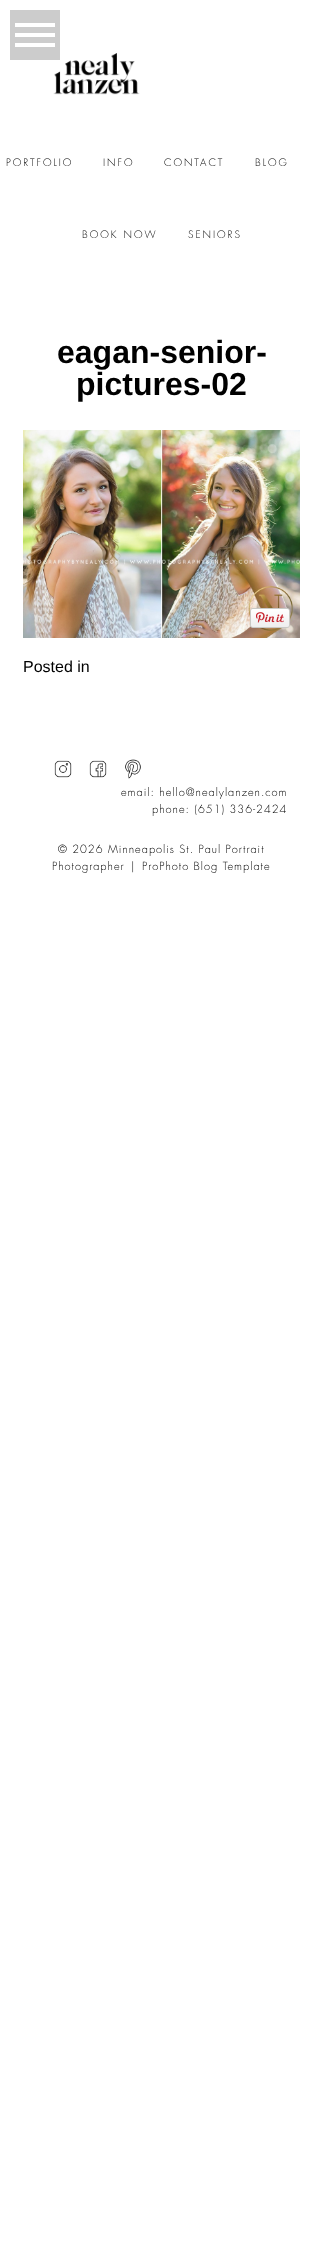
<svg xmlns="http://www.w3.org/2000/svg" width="323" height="2247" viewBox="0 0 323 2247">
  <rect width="100%" height="100%" fill="rgb(255,255,255)"/>
  <image x="53" y="53" width="87" height="42" href="pic1.png"/>
  <rect x="10" y="10" width="50" height="50" fill="rgb(204,204,204)"/>
  <rect x="15" y="23" width="40" height="4" fill="rgb(255,255,255)"/>
  <rect x="15" y="33" width="40" height="4" fill="rgb(255,255,255)"/>
  <rect x="15" y="43" width="40" height="4" fill="rgb(255,255,255)"/>
  <g font-family="Futura" font-size="10" font-weight="300" letter-spacing="2" fill="rgb(0,0,0)">
    <text x="6" y="166">PORTFOLIO</text>
    <text x="103" y="166">INFO</text>
    <text x="164" y="166">CONTACT</text>
    <text x="255" y="166">BLOG</text>
    <text x="82" y="238">BOOK NOW</text>
    <text x="188" y="238">SENIORS</text>
  </g>
  <g font-family="Liberation Sans" font-size="32" font-weight="bold" fill="rgb(0,0,0)">
    <text x="57" y="363">eagan-senior-</text>
    <text x="76" y="395">pictures-02</text>
  </g>
  <image x="23" y="430" width="277" height="208" href="pic2.png"/>
  <image x="250" y="608" width="40" height="20" href="pic3.png"/>
  <text x="23" y="672" font-family="Liberation Sans" font-size="16" fill="rgb(0,0,0)">Posted in</text>
  <image x="54" y="760" width="18" height="18" href="pic4.png"/>
  <image x="89" y="760" width="18" height="18" href="pic5.png"/>
  <image x="125" y="759" width="16" height="20" href="pic6.png"/>
  <g font-family="Futura" font-size="11" font-weight="300" letter-spacing="1" fill="rgb(0,0,0)">
    <text x="121" y="796">email: hello@nealylanzen.com</text>
    <text x="152" y="813">phone: (651) 336-2424</text>
    <text x="58" y="853">© 2026 Minneapolis St. Paul Portrait</text>
    <text x="52" y="870">Photographer</text>
    <text x="131" y="870">|</text>
    <text x="142" y="870">ProPhoto Blog Template</text>
  </g>
</svg>
